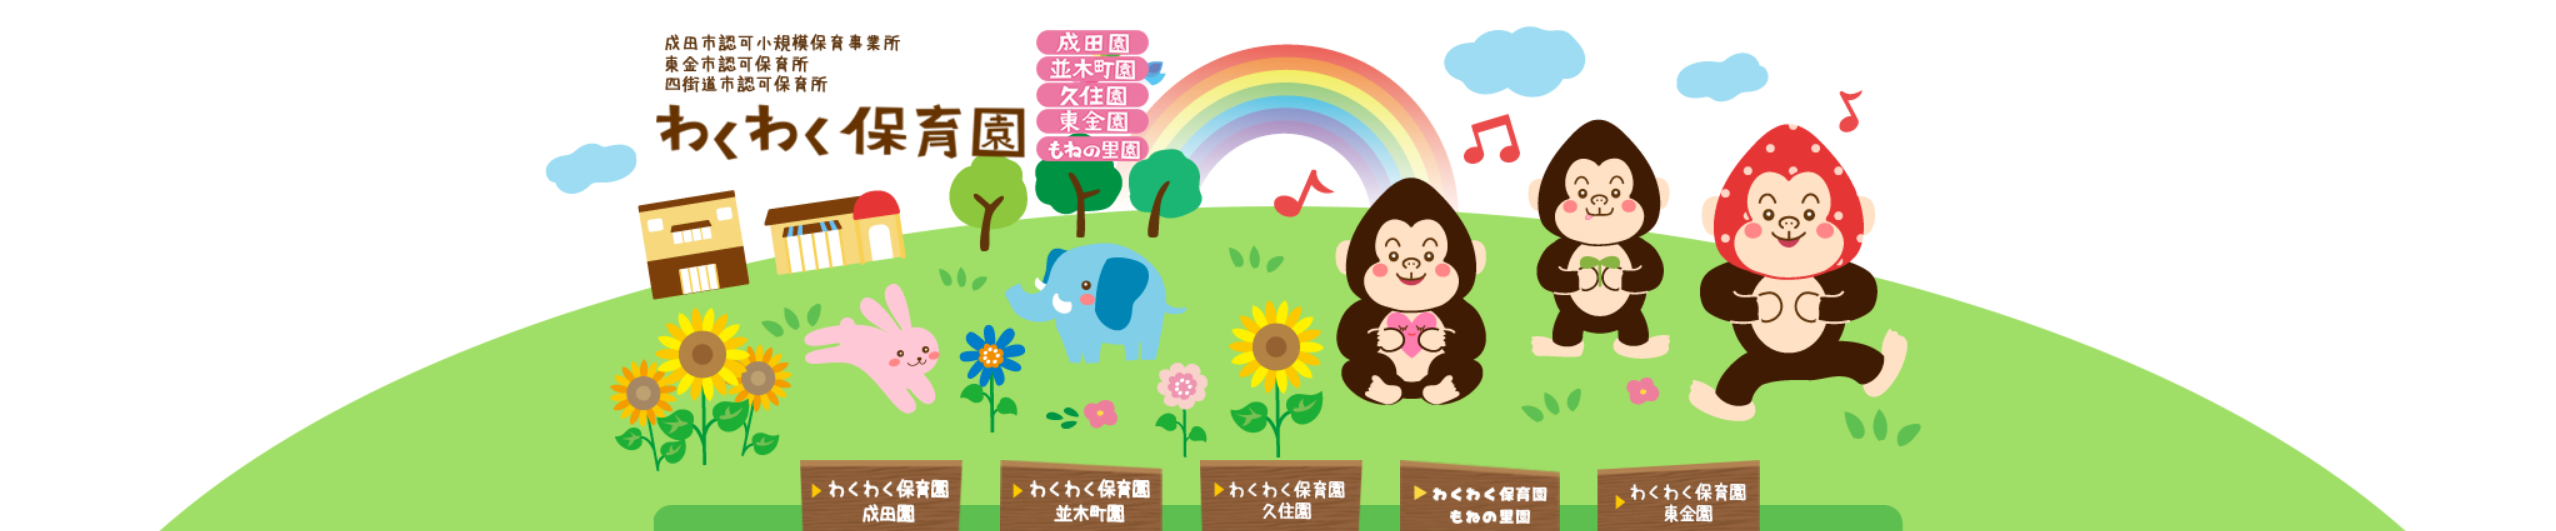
<svg xmlns="http://www.w3.org/2000/svg" width="2556" height="531" viewBox="0 0 2556 531">
  <rect width="100%" height="100%" fill="rgb(255,255,255)"/>
  <image x="158" y="26" width="2249" height="505" href="pic1.png"/>
  <image x="656" y="29" width="493" height="133" href="pic2.png"/>
  <image x="653" y="505" width="1251" height="26" href="pic3.png"/>
  <image x="800" y="460" width="163" height="71" href="pic4.png"/>
  <image x="1000" y="460" width="163" height="71" href="pic5.png"/>
  <image x="1200" y="460" width="163" height="71" href="pic6.png"/>
  <image x="1400" y="460" width="160" height="71" href="pic7.png"/>
  <image x="1597" y="460" width="163" height="71" href="pic8.png"/>
</svg>
